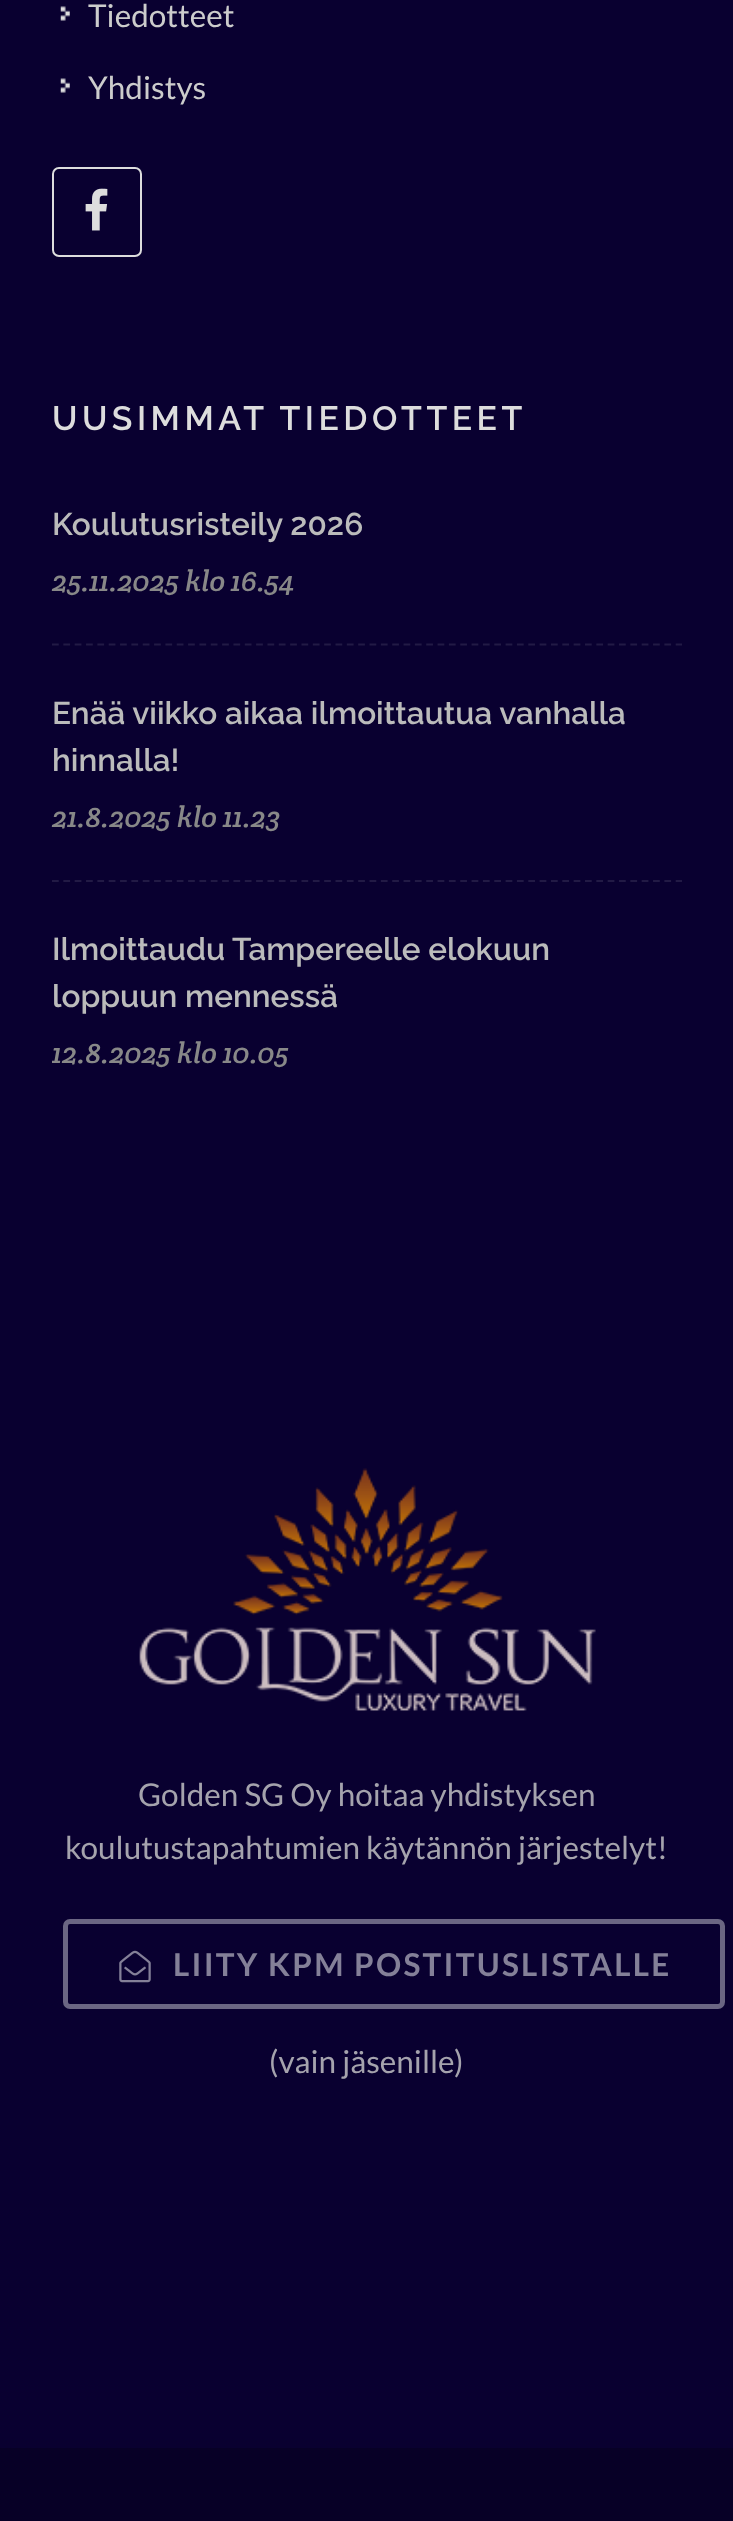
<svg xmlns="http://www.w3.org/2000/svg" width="733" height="2521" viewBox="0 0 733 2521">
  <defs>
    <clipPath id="clip1"><rect x="52" y="927" width="630" height="144"/></clipPath>
  </defs>
  <rect width="100%" height="100%" fill="rgb(9,0,48)"/>
  <image x="60" y="6" width="10" height="15" href="pic1.png"/>
  <text x="88" y="27" font-family="Lato" font-size="31.5" fill="rgb(204,204,204)">Tiedotteet</text>
  <image x="60" y="78" width="10" height="15" href="pic1.png"/>
  <text x="88" y="99" font-family="Lato" font-size="31.5" fill="rgb(204,204,204)">Yhdistys</text>
  <rect x="53" y="168" width="88" height="88" rx="6" fill="none" stroke="rgb(221,221,221)" stroke-width="2"/>
  <image x="85" y="188" width="23" height="43" href="pic2.png"/>
  <text x="52" y="430" font-family="Raleway" font-size="33.75" font-weight="600" letter-spacing="4.5" fill="rgb(221,221,221)">UUSIMMAT TIEDOTTEET</text>
  <text x="52" y="535" font-family="Raleway" font-size="31.5" font-weight="600" fill="rgb(187,187,187)">Koulutusristeily 2026</text>
  <text x="52" y="591" font-family="Crete Round" font-size="29.25" font-style="italic" fill="rgb(136,136,136)">25.11.2025 klo 16.54</text>
  <path d="M52 644.5H682" fill="none" stroke="rgb(34,26,69)" stroke-width="2.2" stroke-dasharray="6.75 4.59"/>
  <g font-family="Raleway" font-size="31.5" font-weight="600" fill="rgb(187,187,187)">
    <text>
      <tspan x="52" y="724">Enää viikko aikaa ilmoittautua vanhalla</tspan>
      <tspan x="52" y="771">hinnalla!</tspan>
    </text>
  </g>
  <text x="52" y="827" font-family="Crete Round" font-size="29.25" font-style="italic" fill="rgb(136,136,136)">21.8.2025 klo 11.23</text>
  <path d="M52 881H682" fill="none" stroke="rgb(34,26,69)" stroke-width="2.2" stroke-dasharray="6.75 4.59"/>
  <g font-family="Raleway" font-size="31.5" font-weight="600" fill="rgb(187,187,187)">
    <text>
      <tspan x="52" y="960">Ilmoittaudu Tampereelle elokuun</tspan>
      <tspan x="52" y="1007">loppuun mennessä</tspan>
    </text>
  </g>
  <g clip-path="url(#clip1)">
    <text x="52" y="1063" font-family="Crete Round" font-size="29.25" font-style="italic" fill="rgb(136,136,136)">12.8.2025 klo 10.05</text>
  </g>
  <image x="139" y="1468" width="457" height="243" href="pic3.png"/>
  <g font-family="Lato" font-size="31.5" fill="rgb(165,163,173)">
    <text x="138" y="1806">Golden SG Oy hoitaa yhdistyksen</text>
    <text x="65" y="1859">koulutustapahtumien käytännön järjestelyt!</text>
  </g>
  <rect x="65.5" y="1921.5" width="657" height="85" rx="4.5" fill="none" stroke="rgb(107,102,131)" stroke-width="5"/>
  <image x="119" y="1950" width="32" height="33" href="pic4.png"/>
  <text x="173" y="1976" font-family="Lato" font-size="31.5" font-weight="bold" letter-spacing="2.25" fill="rgb(132,128,152)">LIITY KPM POSTITUSLISTALLE</text>
  <text x="269" y="2073" font-family="Lato" font-size="31.5" fill="rgb(165,163,173)">(vain jäsenille)</text>
  <rect x="0" y="2448" width="733" height="73" fill="rgb(7,0,38)"/>
</svg>
